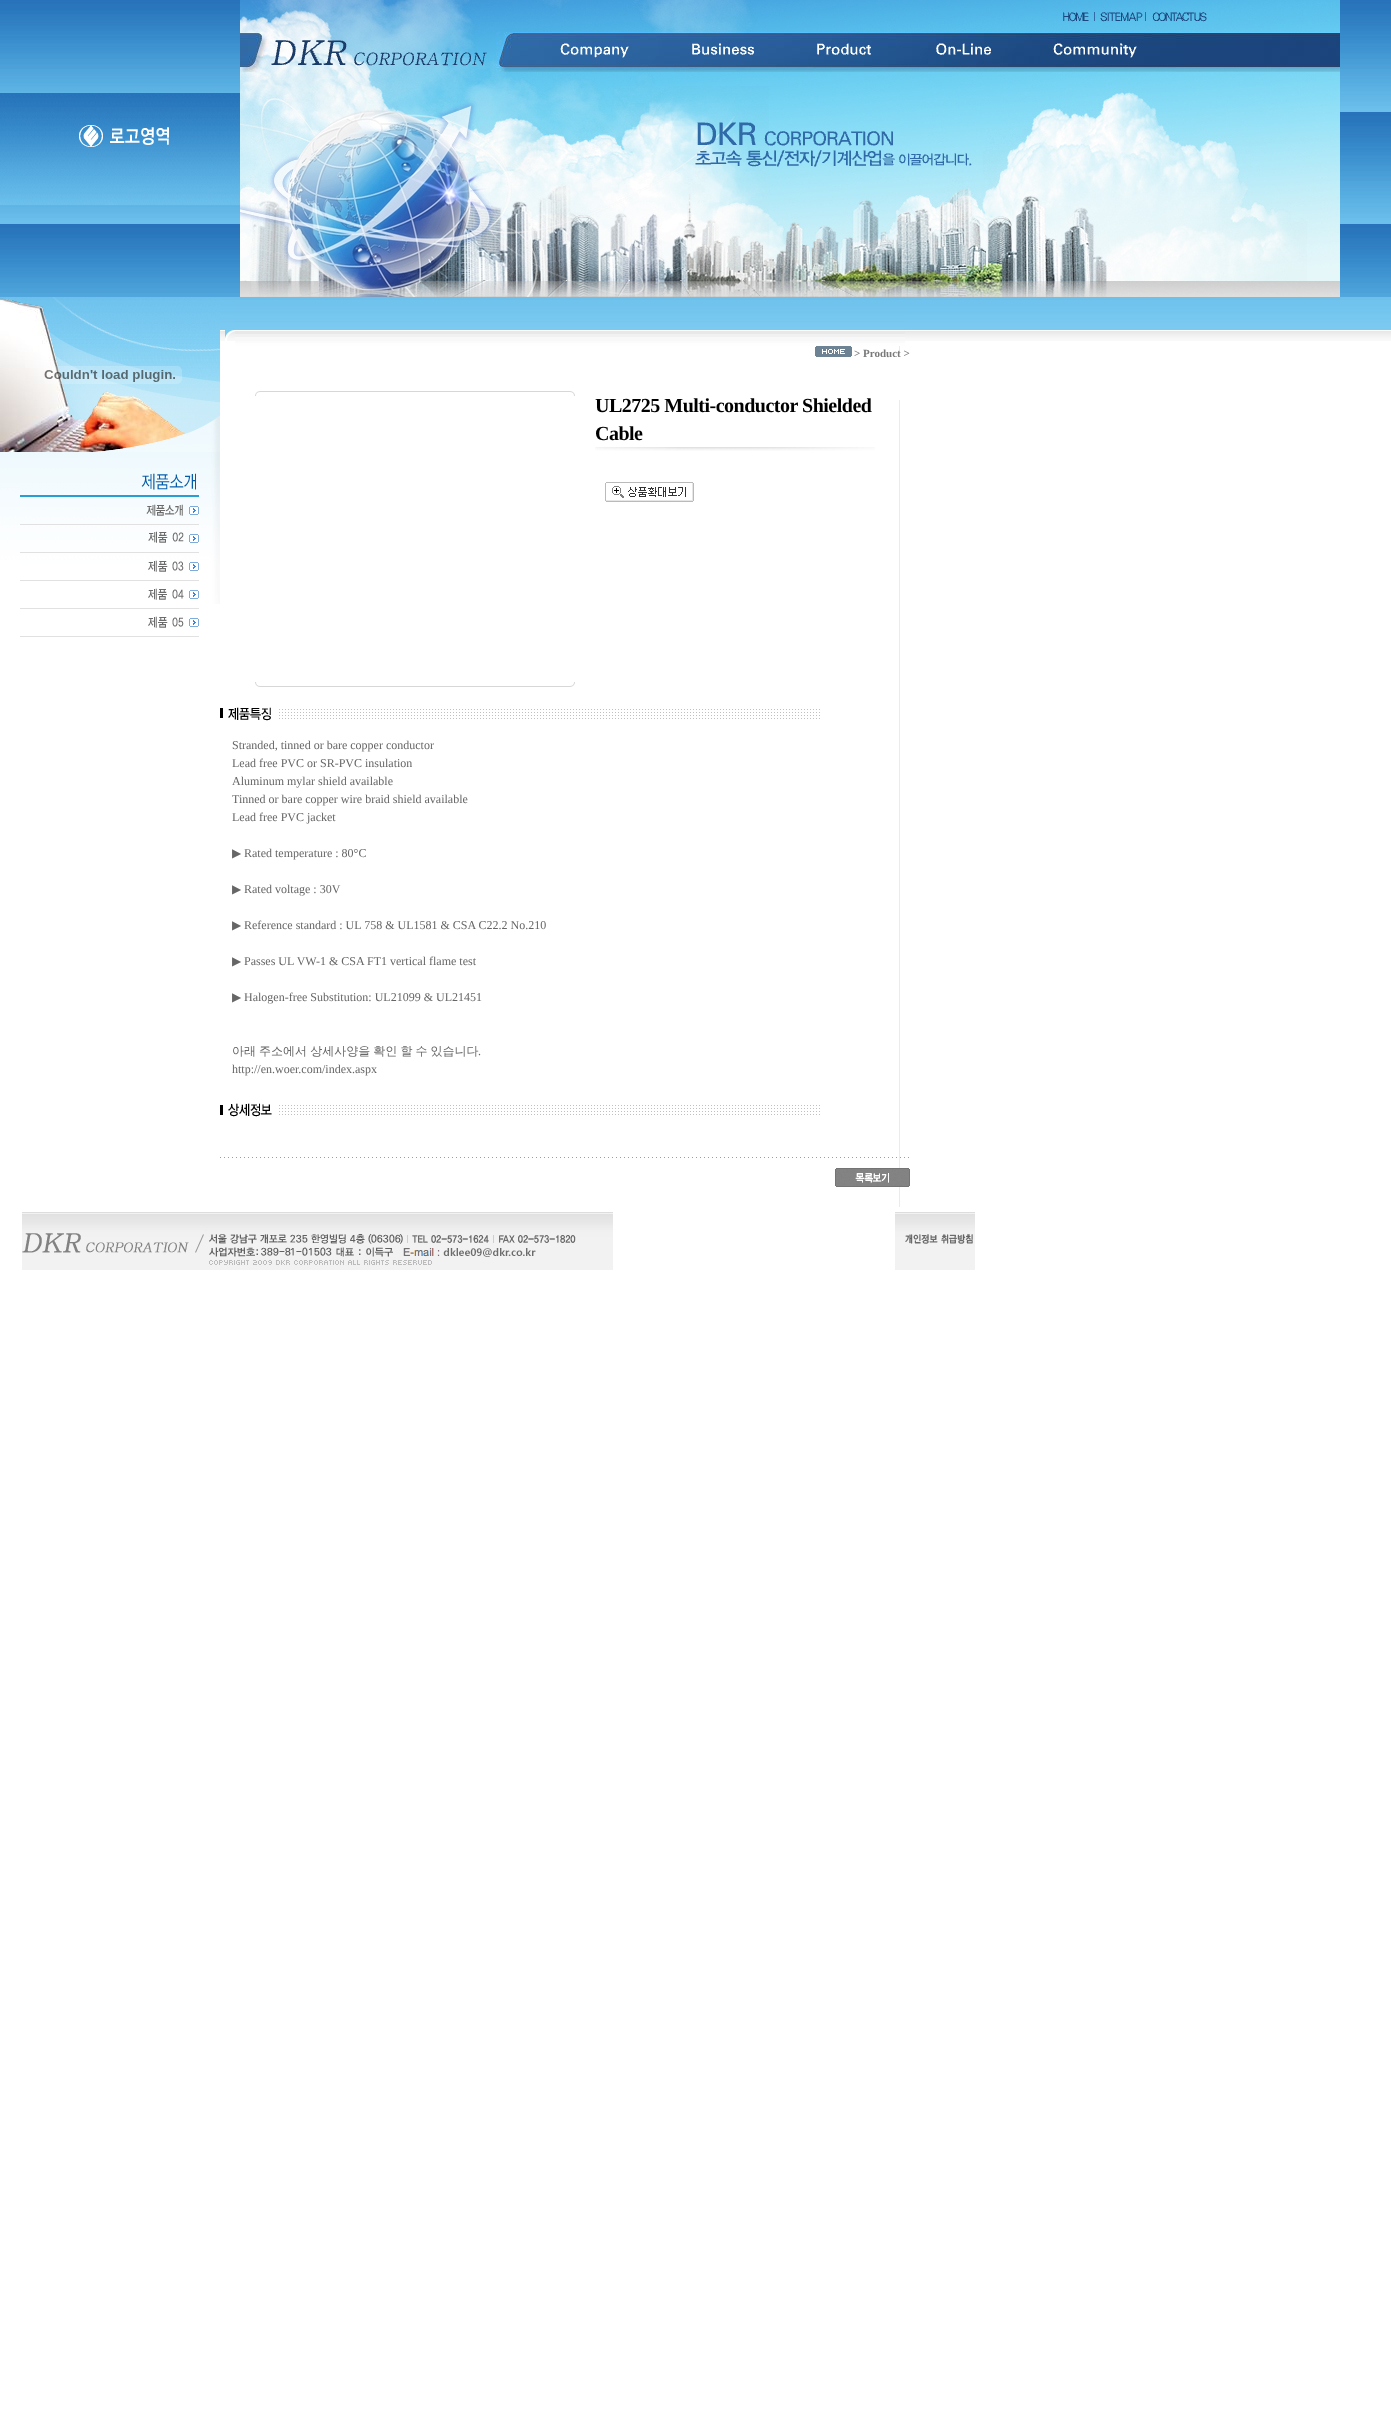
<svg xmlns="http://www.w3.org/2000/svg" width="1391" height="2416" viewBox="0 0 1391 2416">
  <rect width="100%" height="100%" fill="rgb(255,255,255)"/>
  <image x="0" y="0" width="1391" height="297" href="pic1.png"/>
  <image x="0" y="93" width="240" height="112" href="pic2.png"/>
  <image x="240" y="0" width="1100" height="297" href="pic3.png"/>
  <image x="220" y="297" width="1171" height="44" href="pic4.png"/>
  <image x="0" y="452" width="220" height="152" href="pic5.png"/>
  <image x="0" y="297" width="220" height="155" href="pic6.png"/>
  <image x="44" y="366" width="138" height="18" href="pic7.png"/>
  <image x="20" y="473" width="179" height="24" href="pic8.png"/>
  <image x="20" y="504" width="179" height="21" href="pic9.png"/>
  <image x="20" y="531" width="179" height="22" href="pic10.png"/>
  <image x="20" y="560" width="179" height="21" href="pic11.png"/>
  <image x="20" y="588" width="179" height="21" href="pic12.png"/>
  <image x="20" y="616" width="179" height="21" href="pic13.png"/>
  <image x="225" y="330" width="10" height="11" href="pic14.png"/>
  <image x="235" y="297" width="670" height="49" href="pic15.png"/>
  <rect x="899" y="346" width="1" height="861" fill="rgb(235,235,235)"/>
  <rect x="899" y="354" width="1" height="46" fill="rgb(255,255,255)"/>
  <image x="815" y="346" width="37" height="11" href="pic16.png"/>
  <text x="854" y="357" font-family="Liberation Serif" font-size="11" font-weight="bold" fill="rgb(122,122,122)">&gt; Product &gt;</text>
  <image x="255" y="391" width="320" height="5" href="pic17.png"/>
  <image x="255" y="682" width="320" height="5" href="pic18.png"/>
  <g font-family="Liberation Serif" font-size="20" font-weight="bold" letter-spacing="-0.5" fill="rgb(0,0,0)">
    <text>
      <tspan x="595" y="412">UL2725 Multi-conductor Shielded</tspan>
      <tspan x="595" y="440">Cable</tspan>
    </text>
  </g>
  <image x="595" y="447" width="280" height="4" href="pic19.png"/>
  <image x="605" y="482" width="89" height="20" href="pic20.png"/>
  <image x="220" y="707" width="600" height="14" href="pic21.png"/>
  <g font-family="Liberation Serif" font-size="12" fill="rgb(102,102,102)">
    <text>
      <tspan x="232" y="749">Stranded, tinned or bare copper conductor</tspan>
      <tspan x="232" y="767">Lead free PVC or SR-PVC insulation</tspan>
      <tspan x="232" y="785">Aluminum mylar shield available</tspan>
      <tspan x="232" y="803">Tinned or bare copper wire braid shield available</tspan>
      <tspan x="232" y="821">Lead free PVC jacket</tspan>
    </text>
  </g>
  <text x="232" y="857" font-family="DejaVu Sans" font-size="12" fill="rgb(102,102,102)">▶</text>
  <text x="244" y="857" font-family="Liberation Serif" font-size="12" fill="rgb(102,102,102)">Rated temperature : 80°C</text>
  <text x="232" y="893" font-family="DejaVu Sans" font-size="12" fill="rgb(102,102,102)">▶</text>
  <text x="244" y="893" font-family="Liberation Serif" font-size="12" fill="rgb(102,102,102)">Rated voltage : 30V</text>
  <text x="232" y="929" font-family="DejaVu Sans" font-size="12" fill="rgb(102,102,102)">▶</text>
  <text x="244" y="929" font-family="Liberation Serif" font-size="12" fill="rgb(102,102,102)">Reference standard : UL 758 &amp; UL1581 &amp; CSA C22.2 No.210</text>
  <text x="232" y="965" font-family="DejaVu Sans" font-size="12" fill="rgb(102,102,102)">▶</text>
  <text x="244" y="965" font-family="Liberation Serif" font-size="12" fill="rgb(102,102,102)">Passes UL VW-1 &amp; CSA FT1 vertical flame test</text>
  <text x="232" y="1001" font-family="DejaVu Sans" font-size="12" fill="rgb(102,102,102)">▶</text>
  <text x="244" y="1001" font-family="Liberation Serif" font-size="12" fill="rgb(102,102,102)">Halogen-free Substitution: UL21099 &amp; UL21451</text>
  <text x="232" y="1055" word-spacing="-0.5" font-family="WenQuanYi Zen Hei" font-size="12" font-weight="500" fill="rgb(102,102,102)">아래 주소에서 상세사양을 확인 할 수 있습니다</text>
  <g font-family="Liberation Serif" font-size="12" fill="rgb(102,102,102)">
    <text x="478" y="1055">.</text>
    <text x="232" y="1073">http://en.woer.com/index.aspx</text>
  </g>
  <image x="220" y="1103" width="600" height="14" href="pic22.png"/>
  <image x="220" y="1157" width="689" height="1" href="pic23.png"/>
  <image x="835" y="1168" width="75" height="19" href="pic24.png"/>
  <image x="22" y="1212" width="591" height="58" href="pic25.png"/>
  <image x="895" y="1212" width="80" height="58" href="pic26.png"/>
</svg>
